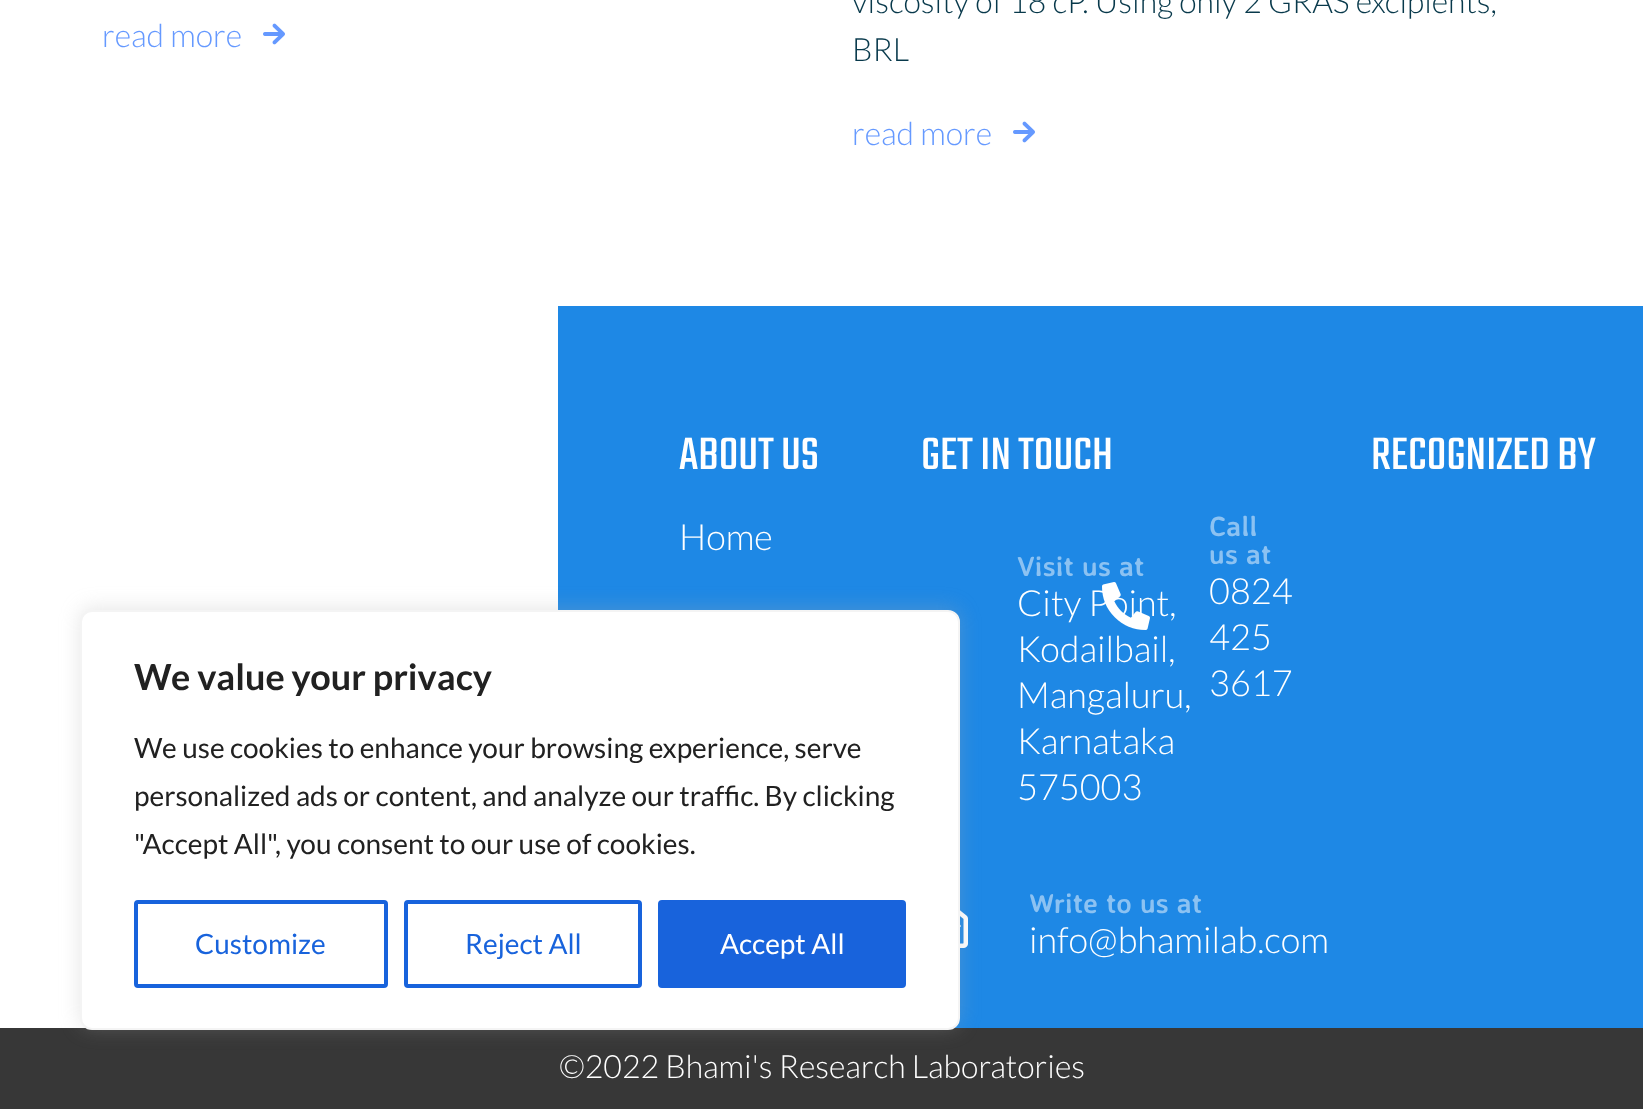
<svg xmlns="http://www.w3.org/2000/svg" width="1643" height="1109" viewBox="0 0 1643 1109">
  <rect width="100%" height="100%" fill="rgb(255,255,255)"/>
  <text x="102" y="47" font-family="Lato" font-size="32" font-weight="300" fill="rgb(101,153,255)">read more</text>
  <image x="263" y="23" width="22" height="22" href="pic1.png"/>
  <g font-family="Lato" font-size="32" font-weight="300" fill="rgb(8,57,75)">
    <text>
      <tspan x="852" y="13">viscosity of 18 cP. Using only 2 GRAS excipients,</tspan>
      <tspan x="852" y="61">BRL</tspan>
    </text>
  </g>
  <text x="852" y="145" font-family="Lato" font-size="32" font-weight="300" fill="rgb(101,153,255)">read more</text>
  <image x="1013" y="121" width="22" height="22" href="pic1.png"/>
  <rect x="558" y="306" width="1085" height="722" fill="rgb(30,136,229)"/>
  <text x="679" y="469" font-family="Teko" font-size="50" fill="rgb(255,255,255)">ABOUT US</text>
  <text x="679" y="550" font-family="Lato" font-size="36" font-weight="300" fill="rgb(255,255,255)">Home</text>
  <text x="921" y="469" font-family="Teko" font-size="50" fill="rgb(255,255,255)">GET IN TOUCH</text>
  <text x="1017" y="576" font-family="Averia Sans Libre" font-size="28" font-weight="bold" fill="rgb(140,194,242)">Visit us at</text>
  <g font-family="Lato" font-size="36" font-weight="300" fill="rgb(255,255,255)">
    <text>
      <tspan x="1017" y="616">City Point,</tspan>
      <tspan x="1017" y="662">Kodailbail,</tspan>
      <tspan x="1017" y="708">Mangaluru,</tspan>
      <tspan x="1017" y="754">Karnataka</tspan>
      <tspan x="1017" y="800">575003</tspan>
    </text>
  </g>
  <image x="1102" y="582" width="48" height="48" href="pic2.png"/>
  <g font-family="Averia Sans Libre" font-size="28" font-weight="bold" fill="rgb(140,194,242)">
    <text>
      <tspan x="1209" y="536">Call</tspan>
      <tspan x="1209" y="564">us at</tspan>
    </text>
  </g>
  <g font-family="Lato" font-size="36" font-weight="300" fill="rgb(255,255,255)">
    <text>
      <tspan x="1209" y="604">0824</tspan>
      <tspan x="1209" y="650">425</tspan>
      <tspan x="1209" y="696">3617</tspan>
    </text>
  </g>
  <image x="960" y="910" width="8" height="38" href="pic3.png"/>
  <text x="1029" y="913" font-family="Averia Sans Libre" font-size="28" font-weight="bold" fill="rgb(140,194,242)">Write to us at</text>
  <text x="1029" y="953" font-family="Lato" font-size="36" font-weight="300" fill="rgb(255,255,255)">info@bhamilab.com</text>
  <text x="1371" y="469" font-family="Teko" font-size="50" fill="rgb(255,255,255)">RECOGNIZED BY</text>
  <rect x="0" y="1028" width="1643" height="81" fill="rgb(55,55,55)"/>
  <text x="559" y="1078" font-family="Lato" font-size="32" font-weight="300" fill="rgb(255,255,255)">©2022 Bhami's Research Laboratories</text>
  <rect x="80" y="608" width="880" height="420" rx="12" fill="rgba(172,171,171,0.3)" filter="blur(10px)"/>
  <rect x="81" y="611" width="878" height="418" rx="11" fill="rgb(255,255,255)" stroke="rgb(244,244,244)" stroke-width="2"/>
  <text x="134" y="690" font-family="Lato" font-size="36" font-weight="bold" fill="rgb(33,33,33)">We value your privacy</text>
  <g font-family="Lato" font-size="28" fill="rgb(33,33,33)">
    <text>
      <tspan x="134" y="758">We use cookies to enhance your browsing experience, serve</tspan>
      <tspan x="134" y="806">personalized ads or content, and analyze our traffic. By clicking</tspan>
      <tspan x="134" y="854">"Accept All", you consent to our use of cookies.</tspan>
    </text>
  </g>
  <rect x="136" y="902" width="250" height="84" rx="2" fill="none" stroke="rgb(24,99,220)" stroke-width="4"/>
  <text x="195" y="954" font-family="Lato" font-size="28" fill="rgb(24,99,220)">Customize</text>
  <rect x="406" y="902" width="234" height="84" rx="2" fill="none" stroke="rgb(24,99,220)" stroke-width="4"/>
  <text x="465" y="954" font-family="Lato" font-size="28" fill="rgb(24,99,220)">Reject All</text>
  <rect x="660" y="902" width="244" height="84" rx="2" fill="rgb(24,99,220)" stroke="rgb(24,99,220)" stroke-width="4"/>
  <text x="720" y="954" font-family="Lato" font-size="28" fill="rgb(255,255,255)">Accept All</text>
</svg>
